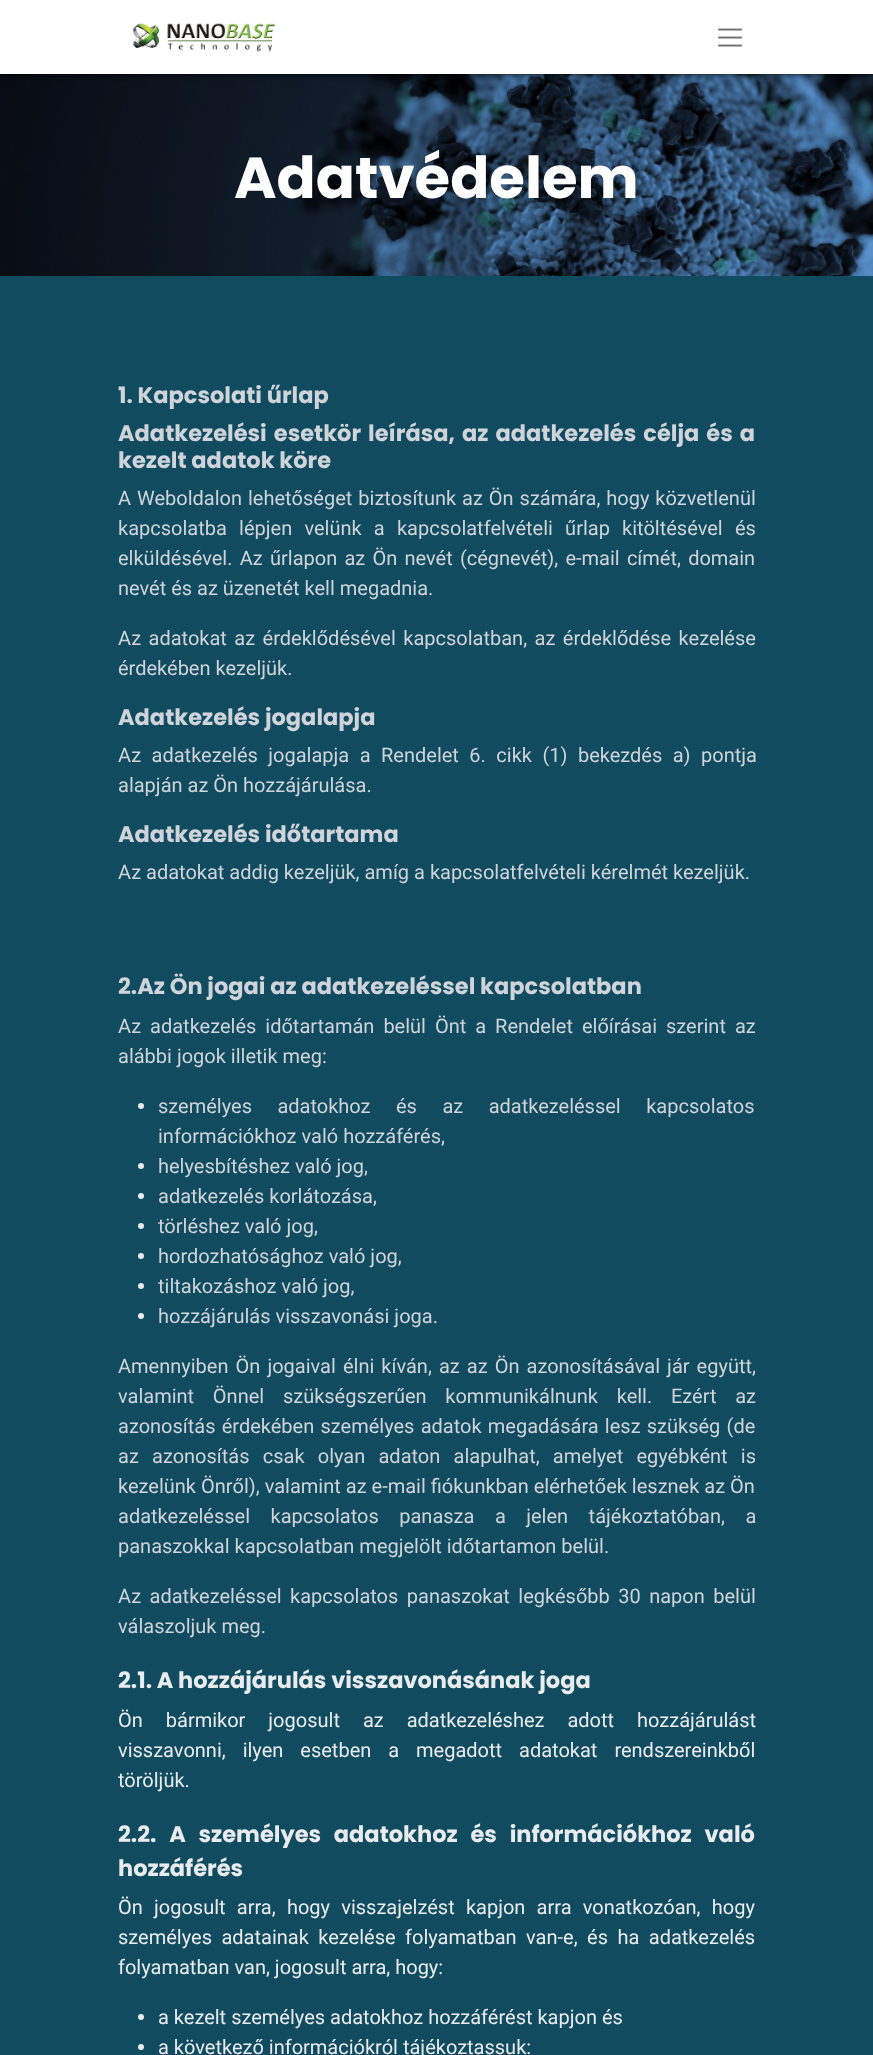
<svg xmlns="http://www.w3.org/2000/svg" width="873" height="2055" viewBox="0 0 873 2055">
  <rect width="100%" height="100%" fill="rgb(255,255,255)"/>
  <image x="0" y="74" width="873" height="202" href="pic3.png"/>
  <rect x="0" y="0" width="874" height="74" fill="rgb(0,0,0)" filter="blur(3px)"/>
  <rect x="0" y="0" width="873" height="74" fill="rgb(255,255,255)"/>
  <image x="132" y="23" width="143" height="29" href="pic1.png"/>
  <image x="718" y="28" width="24" height="19" href="pic2.png"/>
  <text x="234" y="198" font-family="Poppins" font-size="57.75" font-weight="bold" fill="rgb(255,255,255)">Adatvédelem</text>
  <rect x="0" y="276" width="873" height="1779" fill="rgb(17,75,95)"/>
  <g font-family="Poppins" font-size="22.5" font-weight="bold" fill="rgb(206,212,218)">
    <text>
      <tspan x="118" y="403">1. Kapcsolati űrlap</tspan>
      <tspan x="118" y="441" word-spacing="2.25">Adatkezelési esetkör leírása, az adatkezelés célja és a</tspan>
      <tspan x="118" y="468">kezelt adatok köre</tspan>
    </text>
  </g>
  <g font-family="Roboto" font-size="20" fill="rgb(206,212,218)">
    <text>
      <tspan x="118" y="505" word-spacing="1">A Weboldalon lehetőséget biztosítunk az Ön számára, hogy közvetlenül</tspan>
      <tspan x="118" y="535" word-spacing="7.25">kapcsolatba lépjen velünk a kapcsolatfelvételi űrlap kitöltésével és</tspan>
      <tspan x="118" y="565" word-spacing="2.25">elküldésével. Az űrlapon az Ön nevét (cégnevét), e-mail címét, domain</tspan>
      <tspan x="118" y="595">nevét és az üzenetét kell megadnia.</tspan>
    </text>
    <text>
      <tspan x="118" y="645" word-spacing="2.5">Az adatokat az érdeklődésével kapcsolatban, az érdeklődése kezelése</tspan>
      <tspan x="118" y="675">érdekében kezeljük.</tspan>
    </text>
  </g>
  <text x="118" y="725" font-family="Poppins" font-size="22.5" font-weight="bold" fill="rgb(206,212,218)">Adatkezelés jogalapja</text>
  <g font-family="Roboto" font-size="20" fill="rgb(206,212,218)">
    <text>
      <tspan x="118" y="762" word-spacing="5.5">Az adatkezelés jogalapja a Rendelet 6. cikk (1) bekezdés a) pontja</tspan>
      <tspan x="118" y="792">alapján az Ön hozzájárulása.</tspan>
    </text>
  </g>
  <text x="118" y="842" font-family="Poppins" font-size="22.5" font-weight="bold" fill="rgb(206,212,218)">Adatkezelés időtartama</text>
  <text x="118" y="879" font-family="Roboto" font-size="20" fill="rgb(206,212,218)">Az adatokat addig kezeljük, amíg a kapcsolatfelvételi kérelmét kezeljük.</text>
  <text x="118" y="994" font-family="Poppins" font-size="22.5" font-weight="bold" fill="rgb(206,212,218)">2.Az Ön jogai az adatkezeléssel kapcsolatban</text>
  <g font-family="Roboto" font-size="20" fill="rgb(206,212,218)">
    <text>
      <tspan x="118" y="1033" word-spacing="4">Az adatkezelés időtartamán belül Önt a Rendelet előírásai szerint az</tspan>
      <tspan x="118" y="1063">alábbi jogok illetik meg:</tspan>
    </text>
  </g>
  <circle cx="141" cy="1106" r="3" fill="rgb(233,236,239)"/>
  <g font-family="Roboto" font-size="20" fill="rgb(206,212,218)">
    <text>
      <tspan x="158" y="1113" word-spacing="20.5">személyes adatokhoz és az adatkezeléssel kapcsolatos</tspan>
      <tspan x="158" y="1143">információkhoz való hozzáférés,</tspan>
    </text>
  </g>
  <circle cx="141" cy="1166" r="3" fill="rgb(233,236,239)"/>
  <text x="158" y="1173" font-family="Roboto" font-size="20" fill="rgb(206,212,218)">helyesbítéshez való jog,</text>
  <circle cx="141" cy="1196" r="3" fill="rgb(233,236,239)"/>
  <text x="158" y="1203" font-family="Roboto" font-size="20" fill="rgb(206,212,218)">adatkezelés korlátozása,</text>
  <circle cx="141" cy="1226" r="3" fill="rgb(233,236,239)"/>
  <text x="158" y="1233" font-family="Roboto" font-size="20" fill="rgb(206,212,218)">törléshez való jog,</text>
  <circle cx="141" cy="1256" r="3" fill="rgb(233,236,239)"/>
  <text x="158" y="1263" font-family="Roboto" font-size="20" fill="rgb(206,212,218)">hordozhatósághoz való jog,</text>
  <circle cx="141" cy="1286" r="3" fill="rgb(233,236,239)"/>
  <text x="158" y="1293" font-family="Roboto" font-size="20" fill="rgb(206,212,218)">tiltakozáshoz való jog,</text>
  <circle cx="141" cy="1316" r="3" fill="rgb(233,236,239)"/>
  <g font-family="Roboto" font-size="20" fill="rgb(206,212,218)">
    <text x="158" y="1323">hozzájárulás visszavonási joga.</text>
    <text>
      <tspan x="118" y="1373" word-spacing="2.1">Amennyiben Ön jogaival élni kíván, az az Ön azonosításával jár együtt,</tspan>
      <tspan x="118" y="1403" word-spacing="13.75">valamint Önnel szükségszerűen kommunikálnunk kell. Ezért az</tspan>
      <tspan x="118" y="1433" word-spacing="1.25">azonosítás érdekében személyes adatok megadására lesz szükség (de</tspan>
      <tspan x="118" y="1463" word-spacing="8.25">az azonosítás csak olyan adaton alapulhat, amelyet egyébként is</tspan>
      <tspan x="118" y="1493">kezelünk Önről), valamint az e-mail fiókunkban elérhetőek lesznek az Ön</tspan>
      <tspan x="118" y="1523" word-spacing="15.5">adatkezeléssel kapcsolatos panasza a jelen tájékoztatóban, a</tspan>
      <tspan x="118" y="1553">panaszokkal kapcsolatban megjelölt időtartamon belül.</tspan>
    </text>
    <text>
      <tspan x="118" y="1603" word-spacing="3.5">Az adatkezeléssel kapcsolatos panaszokat legkésőbb 30 napon belül</tspan>
      <tspan x="118" y="1633">válaszoljuk meg.</tspan>
    </text>
  </g>
  <text x="118" y="1688" font-family="Poppins" font-size="22.5" font-weight="bold" fill="rgb(233,236,239)">2.1. A hozzájárulás visszavonásának joga</text>
  <g font-family="Roboto" font-size="20" fill="rgb(233,236,239)">
    <text>
      <tspan x="118" y="1727" word-spacing="18">Ön bármikor jogosult az adatkezeléshez adott hozzájárulást</tspan>
      <tspan x="118" y="1757" word-spacing="12">visszavonni, ilyen esetben a megadott adatokat rendszereinkből</tspan>
      <tspan x="118" y="1787">töröljük.</tspan>
    </text>
  </g>
  <g font-family="Poppins" font-size="22.5" font-weight="bold" fill="rgb(233,236,239)">
    <text>
      <tspan x="118" y="1842" word-spacing="8">2.2. A személyes adatokhoz és információkhoz való</tspan>
      <tspan x="118" y="1876">hozzáférés</tspan>
    </text>
  </g>
  <g font-family="Roboto" font-size="20" fill="rgb(233,236,239)">
    <text>
      <tspan x="118" y="1914" word-spacing="6.25">Ön jogosult arra, hogy visszajelzést kapjon arra vonatkozóan, hogy</tspan>
      <tspan x="118" y="1944" word-spacing="4.5">személyes adatainak kezelése folyamatban van-e, és ha adatkezelés</tspan>
      <tspan x="118" y="1974">folyamatban van, jogosult arra, hogy:</tspan>
    </text>
  </g>
  <circle cx="141" cy="2017" r="3" fill="rgb(233,236,239)"/>
  <text x="158" y="2024" font-family="Roboto" font-size="20" fill="rgb(233,236,239)">a kezelt személyes adatokhoz hozzáférést kapjon és</text>
  <circle cx="141" cy="2047" r="3" fill="rgb(233,236,239)"/>
  <text x="158" y="2054" font-family="Roboto" font-size="20" fill="rgb(233,236,239)">a következő információkról tájékoztassuk:</text>
</svg>
